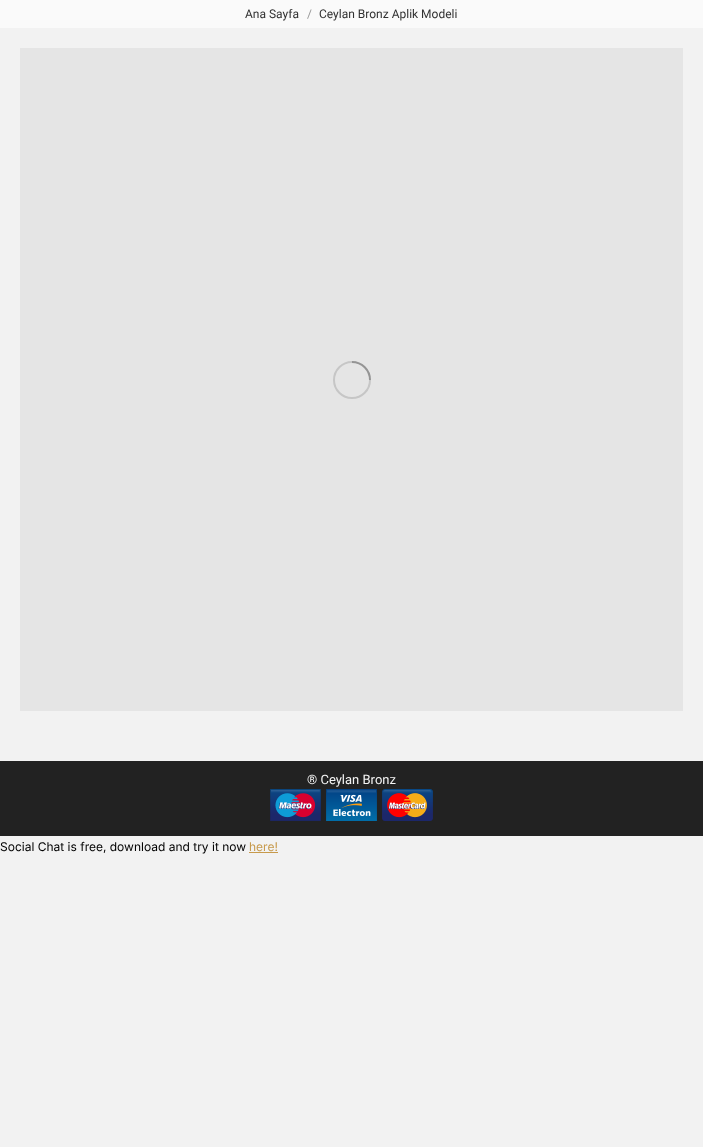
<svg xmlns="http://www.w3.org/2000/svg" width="703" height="1147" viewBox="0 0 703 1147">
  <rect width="100%" height="100%" fill="rgb(242,242,242)"/>
  <rect x="0" y="0" width="703" height="28" fill="rgb(250,250,250)"/>
  <text x="245" y="18" font-family="Roboto" font-size="12" fill="rgb(49,49,49)">Ana Sayfa</text>
  <text x="307" y="18" font-family="Roboto" font-size="12" fill="rgb(150,150,150)">/</text>
  <text x="319" y="18" font-family="Roboto" font-size="12" fill="rgb(49,49,49)">Ceylan Bronz Aplik Modeli</text>
  <rect x="20" y="48" width="663" height="663" fill="rgb(229,229,229)"/>
  <circle cx="352" cy="380" r="18" fill="none" stroke="rgb(198,198,198)" stroke-width="2"/>
  <path d="M370 380C370 370 362 362 352 362" fill="none" stroke="rgba(0,0,0,0.25)" stroke-width="2"/>
  <rect x="0" y="761" width="703" height="75" fill="rgb(34,34,34)"/>
  <text x="307" y="784" font-family="Roboto" font-size="13" fill="rgb(244,244,244)">® Ceylan Bronz</text>
  <image x="270" y="789" width="163" height="32" href="pic1.png"/>
  <text x="0" y="851" font-family="Inter" font-size="12" fill="rgb(0,0,0)">Social Chat is free, download and try it now</text>
  <text x="249" y="851" font-family="Inter" font-size="12" fill="rgb(199,154,76)">here!</text>
  <rect x="249" y="852" width="29" height="1" fill="rgb(199,154,76)"/>
</svg>
